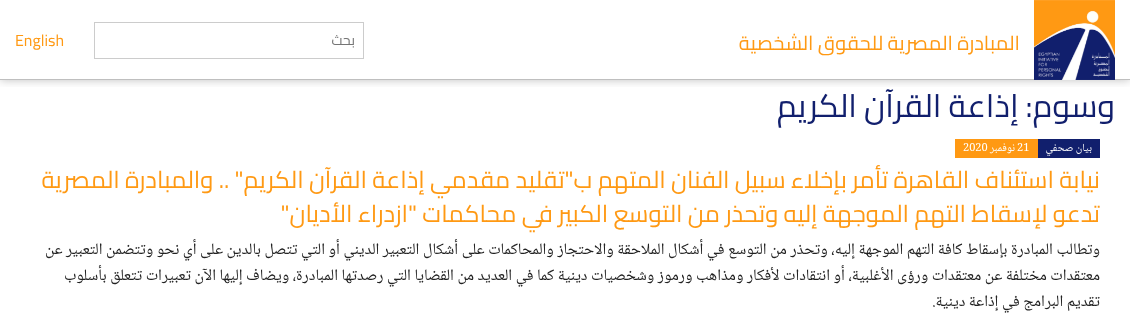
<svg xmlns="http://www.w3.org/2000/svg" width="1130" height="325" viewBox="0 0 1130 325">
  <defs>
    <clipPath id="clip1"><rect x="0" y="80" width="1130" height="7"/></clipPath>
  </defs>
  <rect width="100%" height="100%" fill="rgb(255,255,255)"/>
  <g clip-path="url(#clip1)">
    <rect x="0" y="0" width="1130" height="80" fill="rgba(0,0,0,0.25)" filter="blur(5px)"/>
  </g>
  <rect x="0" y="79" width="1130" height="1" fill="rgb(191,191,191)"/>
  <image x="1034" y="0" width="81" height="80" href="pic1.png"/>
  <text x="1020" y="50" font-family="Cairo" font-size="20" direction="rtl" fill="rgb(255,153,19)">المبادرة المصرية للحقوق الشخصية</text>
  <rect x="94.5" y="22.5" width="269" height="36" fill="none" stroke="rgb(204,204,204)"/>
  <text x="355" y="45" font-family="Cairo" font-size="14" direction="rtl" fill="rgb(117,117,117)">بحث</text>
  <text x="15" y="46" font-family="Cairo" font-size="16" fill="rgb(255,153,19)">English</text>
  <text x="1115" y="117" font-family="Cairo" font-size="32" direction="rtl" fill="rgb(17,31,109)">وسوم: إذاعة القرآن الكريم</text>
  <rect x="1038" y="139" width="62" height="19" fill="rgb(17,31,109)"/>
  <text x="1092" y="151" font-family="Noto Naskh Arabic" font-size="11" direction="rtl" fill="rgb(255,255,255)">بيان صحفي</text>
  <rect x="955" y="139" width="83" height="19" fill="rgb(255,153,19)"/>
  <text x="1017" y="151" font-family="Noto Naskh Arabic" font-size="11" fill="rgb(255,255,255)">21</text>
  <text x="1015" y="151" font-family="Noto Naskh Arabic" font-size="11" direction="rtl" fill="rgb(255,255,255)">نوفمبر</text>
  <text x="963" y="151" font-family="Noto Naskh Arabic" font-size="11" fill="rgb(255,255,255)">2020</text>
  <g font-family="Cairo" font-size="24" direction="rtl" fill="rgb(255,153,19)">
    <text>
      <tspan x="1100" y="188">نيابة استئناف القاهرة تأمر بإخلاء سبيل الفنان المتهم ب"تقليد مقدمي إذاعة القرآن الكريم" .. والمبادرة المصرية</tspan>
      <tspan x="1100" y="222">تدعو لإسقاط التهم الموجهة إليه وتحذر من التوسع الكبير في محاكمات "ازدراء الأديان"</tspan>
    </text>
  </g>
  <g font-family="Noto Naskh Arabic" font-size="16" direction="rtl" fill="rgb(34,34,34)">
    <text>
      <tspan x="1100" y="254">وتطالب المبادرة بإسقاط كافة التهم الموجهة إليه، وتحذر من التوسع في أشكال الملاحقة والاحتجاز والمحاكمات على أشكال التعبير الديني أو التي تتصل بالدين على أي نحو وتتضمن التعبير عن</tspan>
      <tspan x="1100" y="280">معتقدات مختلفة عن معتقدات ورؤى الأغلبية، أو انتقادات لأفكار ومذاهب ورموز وشخصيات دينية كما في العديد من القضايا التي رصدتها المبادرة، ويضاف إليها الآن تعبيرات تتعلق بأسلوب</tspan>
      <tspan x="1100" y="306">تقديم البرامج في إذاعة دينية.</tspan>
    </text>
  </g>
</svg>
